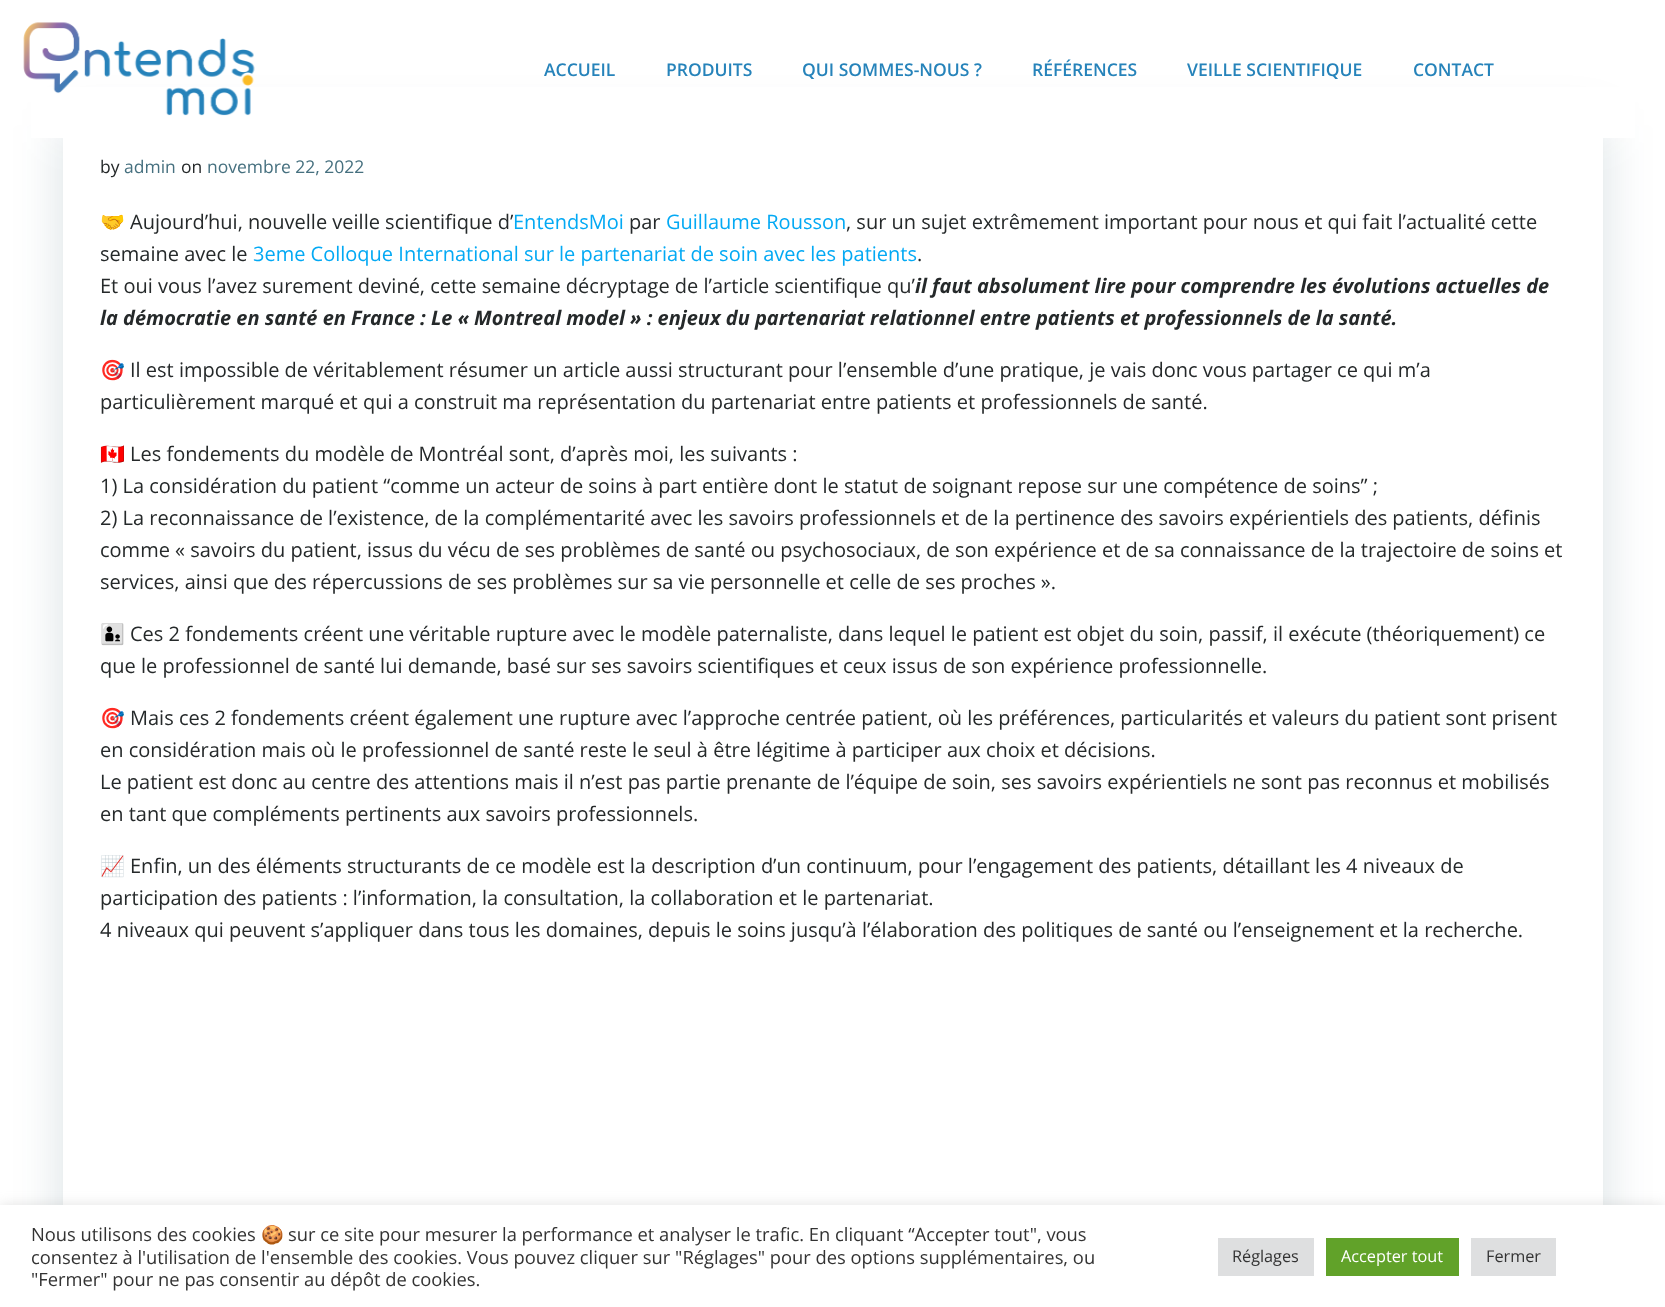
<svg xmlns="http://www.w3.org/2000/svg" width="1665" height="1307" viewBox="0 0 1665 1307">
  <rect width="100%" height="100%" fill="rgb(255,255,255)"/>
  <rect x="63" y="125" width="1540" height="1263" rx="6" fill="rgba(1,51,74,0.15)" filter="blur(25px)"/>
  <rect x="31" y="87" width="1604" height="51" fill="rgb(255,255,255)"/>
  <image x="23" y="22" width="232" height="94" href="pic1.png"/>
  <g font-family="Open Sans" font-size="17.5" font-weight="600" fill="rgb(38,131,186)">
    <text x="544" y="76">ACCUEIL</text>
    <text x="666" y="76">PRODUITS</text>
    <text x="802" y="76">QUI SOMMES-NOUS ?</text>
    <text x="1032" y="76">RÉFÉRENCES</text>
    <text x="1187" y="76">VEILLE SCIENTIFIQUE</text>
    <text x="1413" y="76">CONTACT</text>
  </g>
  <rect x="63" y="138" width="1540" height="1067" fill="rgb(255,255,255)"/>
  <text x="100" y="173" font-family="Open Sans" font-size="17.5" fill="rgb(37,41,42)">by</text>
  <text x="124" y="173" font-family="Open Sans" font-size="17.5" fill="rgb(70,112,127)">admin</text>
  <text x="181" y="173" font-family="Open Sans" font-size="17.5" fill="rgb(37,41,42)">on</text>
  <text x="207" y="173" font-family="Open Sans" font-size="17.5" fill="rgb(70,112,127)">novembre 22, 2022</text>
  <text x="100" y="229" font-family="Noto Color Emoji" font-size="20" fill="rgb(37,41,42)">🤝</text>
  <text x="130" y="229" font-family="Open Sans" font-size="20" fill="rgb(37,41,42)">Aujourd’hui, nouvelle veille scientifique d’</text>
  <text x="513" y="229" font-family="Open Sans" font-size="20" fill="rgb(3,169,244)">EntendsMoi</text>
  <text x="629" y="229" font-family="Open Sans" font-size="20" fill="rgb(37,41,42)">par</text>
  <text x="666" y="229" font-family="Open Sans" font-size="20" fill="rgb(3,169,244)">Guillaume Rousson</text>
  <g font-family="Open Sans" font-size="20" fill="rgb(37,41,42)">
    <text x="846" y="229">, sur un sujet extrêmement important pour nous et qui fait l’actualité cette</text>
    <text x="100" y="261">semaine avec le</text>
  </g>
  <text x="253" y="261" font-family="Open Sans" font-size="20" fill="rgb(3,169,244)">3eme Colloque International sur le partenariat de soin avec les patients</text>
  <g font-family="Open Sans" font-size="20" fill="rgb(37,41,42)">
    <text x="917" y="261">.</text>
    <text x="100" y="293">Et oui vous l’avez surement deviné, cette semaine décryptage de l’article scientifique qu’</text>
  </g>
  <g font-family="Open Sans" font-size="20" font-weight="bold" font-style="italic" fill="rgb(37,41,42)">
    <text x="915" y="293">il faut absolument lire pour comprendre les évolutions actuelles de</text>
    <text x="100" y="325">la démocratie en santé en France : Le « Montreal model » : enjeux du partenariat relationnel entre patients et professionnels de la santé.</text>
  </g>
  <text x="100" y="377" font-family="Noto Color Emoji" font-size="20" fill="rgb(37,41,42)">🎯</text>
  <g font-family="Open Sans" font-size="20" fill="rgb(37,41,42)">
    <text x="130" y="377">Il est impossible de véritablement résumer un article aussi structurant pour l’ensemble d’une pratique, je vais donc vous partager ce qui m’a</text>
    <text x="100" y="409">particulièrement marqué et qui a construit ma représentation du partenariat entre patients et professionnels de santé.</text>
  </g>
  <text x="100" y="461" font-family="Noto Color Emoji" font-size="20" fill="rgb(37,41,42)">🇨🇦</text>
  <g font-family="Open Sans" font-size="20" fill="rgb(37,41,42)">
    <text x="130" y="461">Les fondements du modèle de Montréal sont, d’après moi, les suivants :</text>
    <text>
      <tspan x="100" y="493">1) La considération du patient “comme un acteur de soins à part entière dont le statut de soignant repose sur une compétence de soins” ;</tspan>
      <tspan x="100" y="525">2) La reconnaissance de l’existence, de la complémentarité avec les savoirs professionnels et de la pertinence des savoirs expérientiels des patients, définis</tspan>
      <tspan x="100" y="557">comme « savoirs du patient, issus du vécu de ses problèmes de santé ou psychosociaux, de son expérience et de sa connaissance de la trajectoire de soins et</tspan>
      <tspan x="100" y="589">services, ainsi que des répercussions de ses problèmes sur sa vie personnelle et celle de ses proches ».</tspan>
    </text>
  </g>
  <text x="100" y="641" font-family="Noto Color Emoji" font-size="20" fill="rgb(37,41,42)">👨‍👦</text>
  <g font-family="Open Sans" font-size="20" fill="rgb(37,41,42)">
    <text x="130" y="641">Ces 2 fondements créent une véritable rupture avec le modèle paternaliste, dans lequel le patient est objet du soin, passif, il exécute (théoriquement) ce</text>
    <text x="100" y="673">que le professionnel de santé lui demande, basé sur ses savoirs scientifiques et ceux issus de son expérience professionnelle.</text>
  </g>
  <text x="100" y="725" font-family="Noto Color Emoji" font-size="20" fill="rgb(37,41,42)">🎯</text>
  <g font-family="Open Sans" font-size="20" fill="rgb(37,41,42)">
    <text x="130" y="725">Mais ces 2 fondements créent également une rupture avec l’approche centrée patient, où les préférences, particularités et valeurs du patient sont prisent</text>
    <text>
      <tspan x="100" y="757">en considération mais où le professionnel de santé reste le seul à être légitime à participer aux choix et décisions.</tspan>
      <tspan x="100" y="789">Le patient est donc au centre des attentions mais il n’est pas partie prenante de l’équipe de soin, ses savoirs expérientiels ne sont pas reconnus et mobilisés</tspan>
      <tspan x="100" y="821">en tant que compléments pertinents aux savoirs professionnels.</tspan>
    </text>
  </g>
  <text x="100" y="873" font-family="Noto Color Emoji" font-size="20" fill="rgb(37,41,42)">📈</text>
  <g font-family="Open Sans" font-size="20" fill="rgb(37,41,42)">
    <text x="130" y="873">Enfin, un des éléments structurants de ce modèle est la description d’un continuum, pour l’engagement des patients, détaillant les 4 niveaux de</text>
    <text>
      <tspan x="100" y="905">participation des patients : l’information, la consultation, la collaboration et le partenariat.</tspan>
      <tspan x="100" y="937">4 niveaux qui peuvent s’appliquer dans tous les domaines, depuis le soins jusqu’à l’élaboration des politiques de santé ou l’enseignement et la recherche.</tspan>
    </text>
  </g>
  <rect x="0" y="1204" width="1665" height="102" fill="rgba(172,171,171,0.3)" filter="blur(6px)"/>
  <rect x="0" y="1205" width="1665" height="102" fill="rgb(255,255,255)"/>
  <text x="31" y="1241" font-family="Open Sans" font-size="18.33" fill="rgb(51,51,51)">Nous utilisons des cookies</text>
  <text x="261" y="1241" font-family="Noto Color Emoji" font-size="18.33" fill="rgb(51,51,51)">🍪</text>
  <g font-family="Open Sans" font-size="18.33" fill="rgb(51,51,51)">
    <text x="288" y="1241">sur ce site pour mesurer la performance et analyser le trafic. En cliquant “Accepter tout", vous</text>
    <text>
      <tspan x="31" y="1264">consentez à l'utilisation de l'ensemble des cookies. Vous pouvez cliquer sur "Réglages" pour des options supplémentaires, ou</tspan>
      <tspan x="31" y="1286">"Fermer" pour ne pas consentir au dépôt de cookies.</tspan>
    </text>
  </g>
  <rect x="1218" y="1238" width="96" height="38" fill="rgb(222,223,224)"/>
  <text x="1232" y="1262" font-family="Open Sans" font-size="16.25" fill="rgb(51,51,51)">Réglages</text>
  <rect x="1326" y="1238" width="133" height="38" fill="rgb(97,162,41)"/>
  <text x="1341" y="1262" font-family="Open Sans" font-size="16.25" fill="rgb(255,255,255)">Accepter tout</text>
  <rect x="1471" y="1238" width="85" height="38" fill="rgb(222,223,224)"/>
  <text x="1486" y="1262" font-family="Open Sans" font-size="16.25" fill="rgb(51,51,51)">Fermer</text>
</svg>
